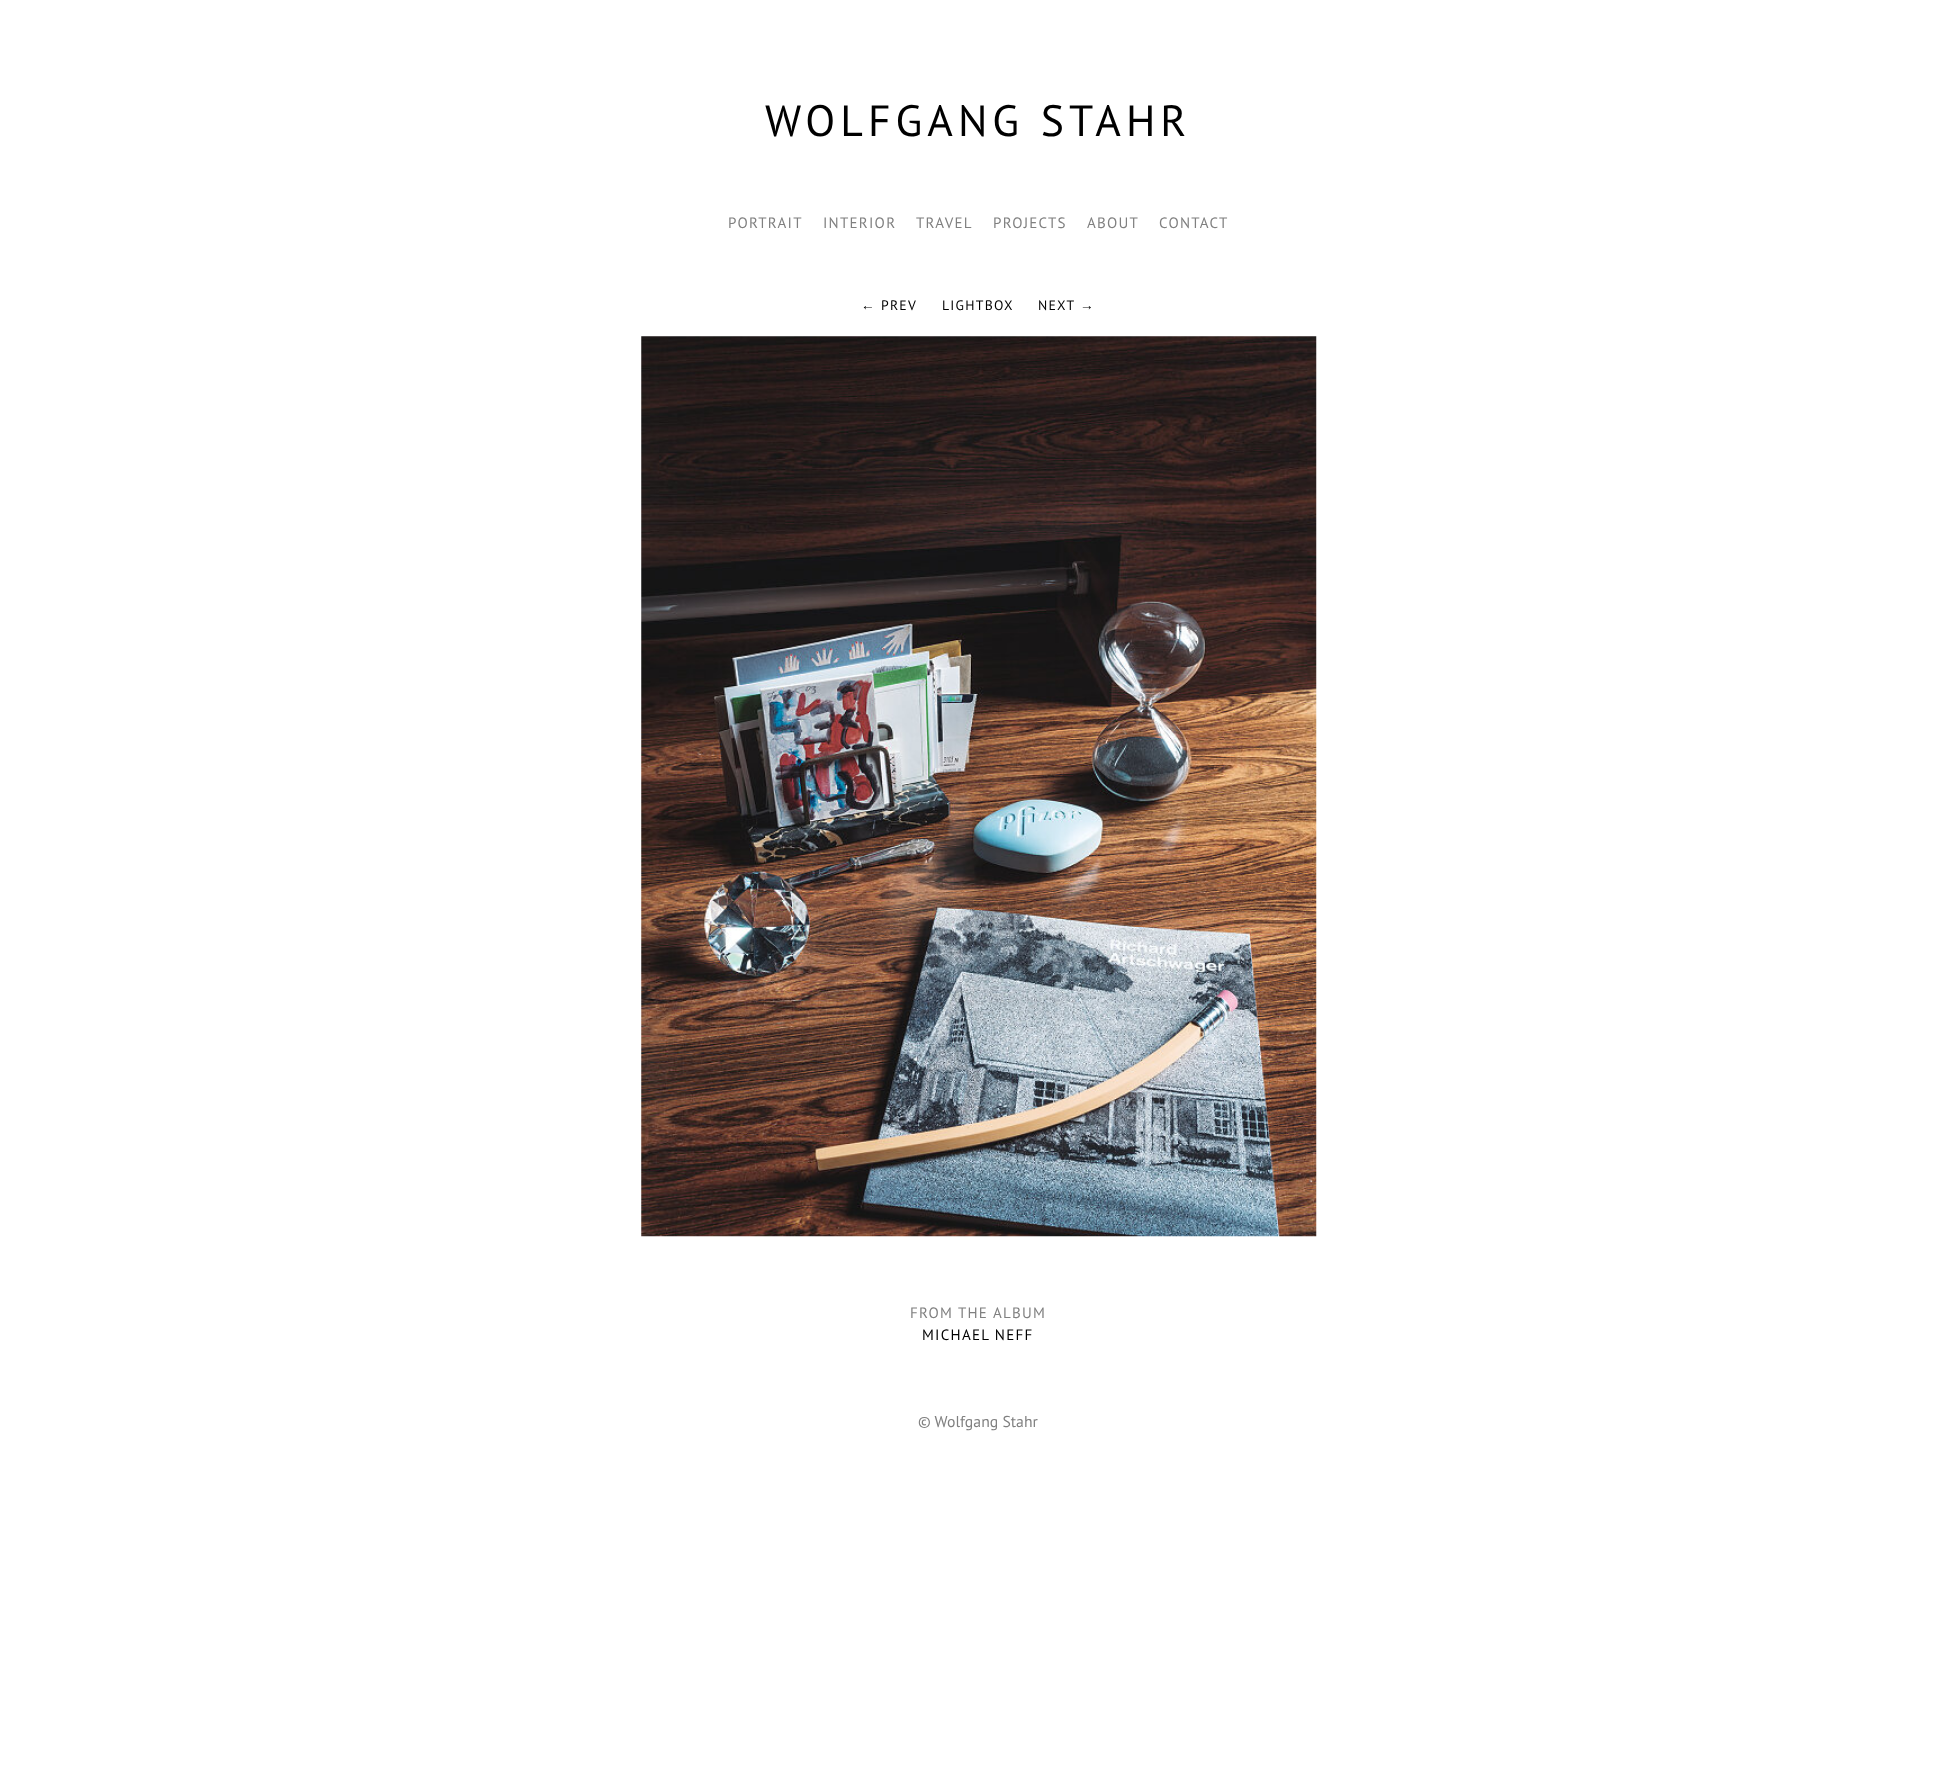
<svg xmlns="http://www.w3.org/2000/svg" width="1956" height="1776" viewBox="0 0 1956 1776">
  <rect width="100%" height="100%" fill="rgb(255,255,255)"/>
  <text x="765" y="136" font-family="PT Sans" font-size="43.75" letter-spacing="5" fill="rgb(0,0,0)">WOLFGANG STAHR</text>
  <g font-family="PT Sans" font-size="15" letter-spacing="1.25" fill="rgb(128,128,128)">
    <text x="728" y="228">PORTRAIT</text>
    <text x="823" y="228">INTERIOR</text>
    <text x="916" y="228">TRAVEL</text>
    <text x="993" y="228">PROJECTS</text>
    <text x="1087" y="228">ABOUT</text>
    <text x="1159" y="228">CONTACT</text>
  </g>
  <text x="861" y="310" font-family="Liberation Sans" font-size="13.75" letter-spacing="1.25" fill="rgb(0,0,0)">←</text>
  <g font-family="PT Sans" font-size="13.75" letter-spacing="1.25" fill="rgb(0,0,0)">
    <text x="881" y="310">PREV</text>
    <text x="942" y="310">LIGHTBOX</text>
    <text x="1038" y="310">NEXT</text>
  </g>
  <text x="1080" y="310" font-family="Liberation Sans" font-size="13.75" letter-spacing="1.25" fill="rgb(0,0,0)">→</text>
  <image x="641" y="336" width="676" height="901" href="pic1.png"/>
  <text x="910" y="1318" font-family="PT Sans" font-size="15" letter-spacing="1.25" fill="rgb(128,128,128)">FROM THE ALBUM</text>
  <text x="922" y="1340" font-family="PT Sans" font-size="15" letter-spacing="1.25" fill="rgb(0,0,0)">MICHAEL NEFF</text>
  <text x="918" y="1427" font-family="PT Sans" font-size="15.75" fill="rgb(128,128,128)">© Wolfgang Stahr</text>
</svg>
